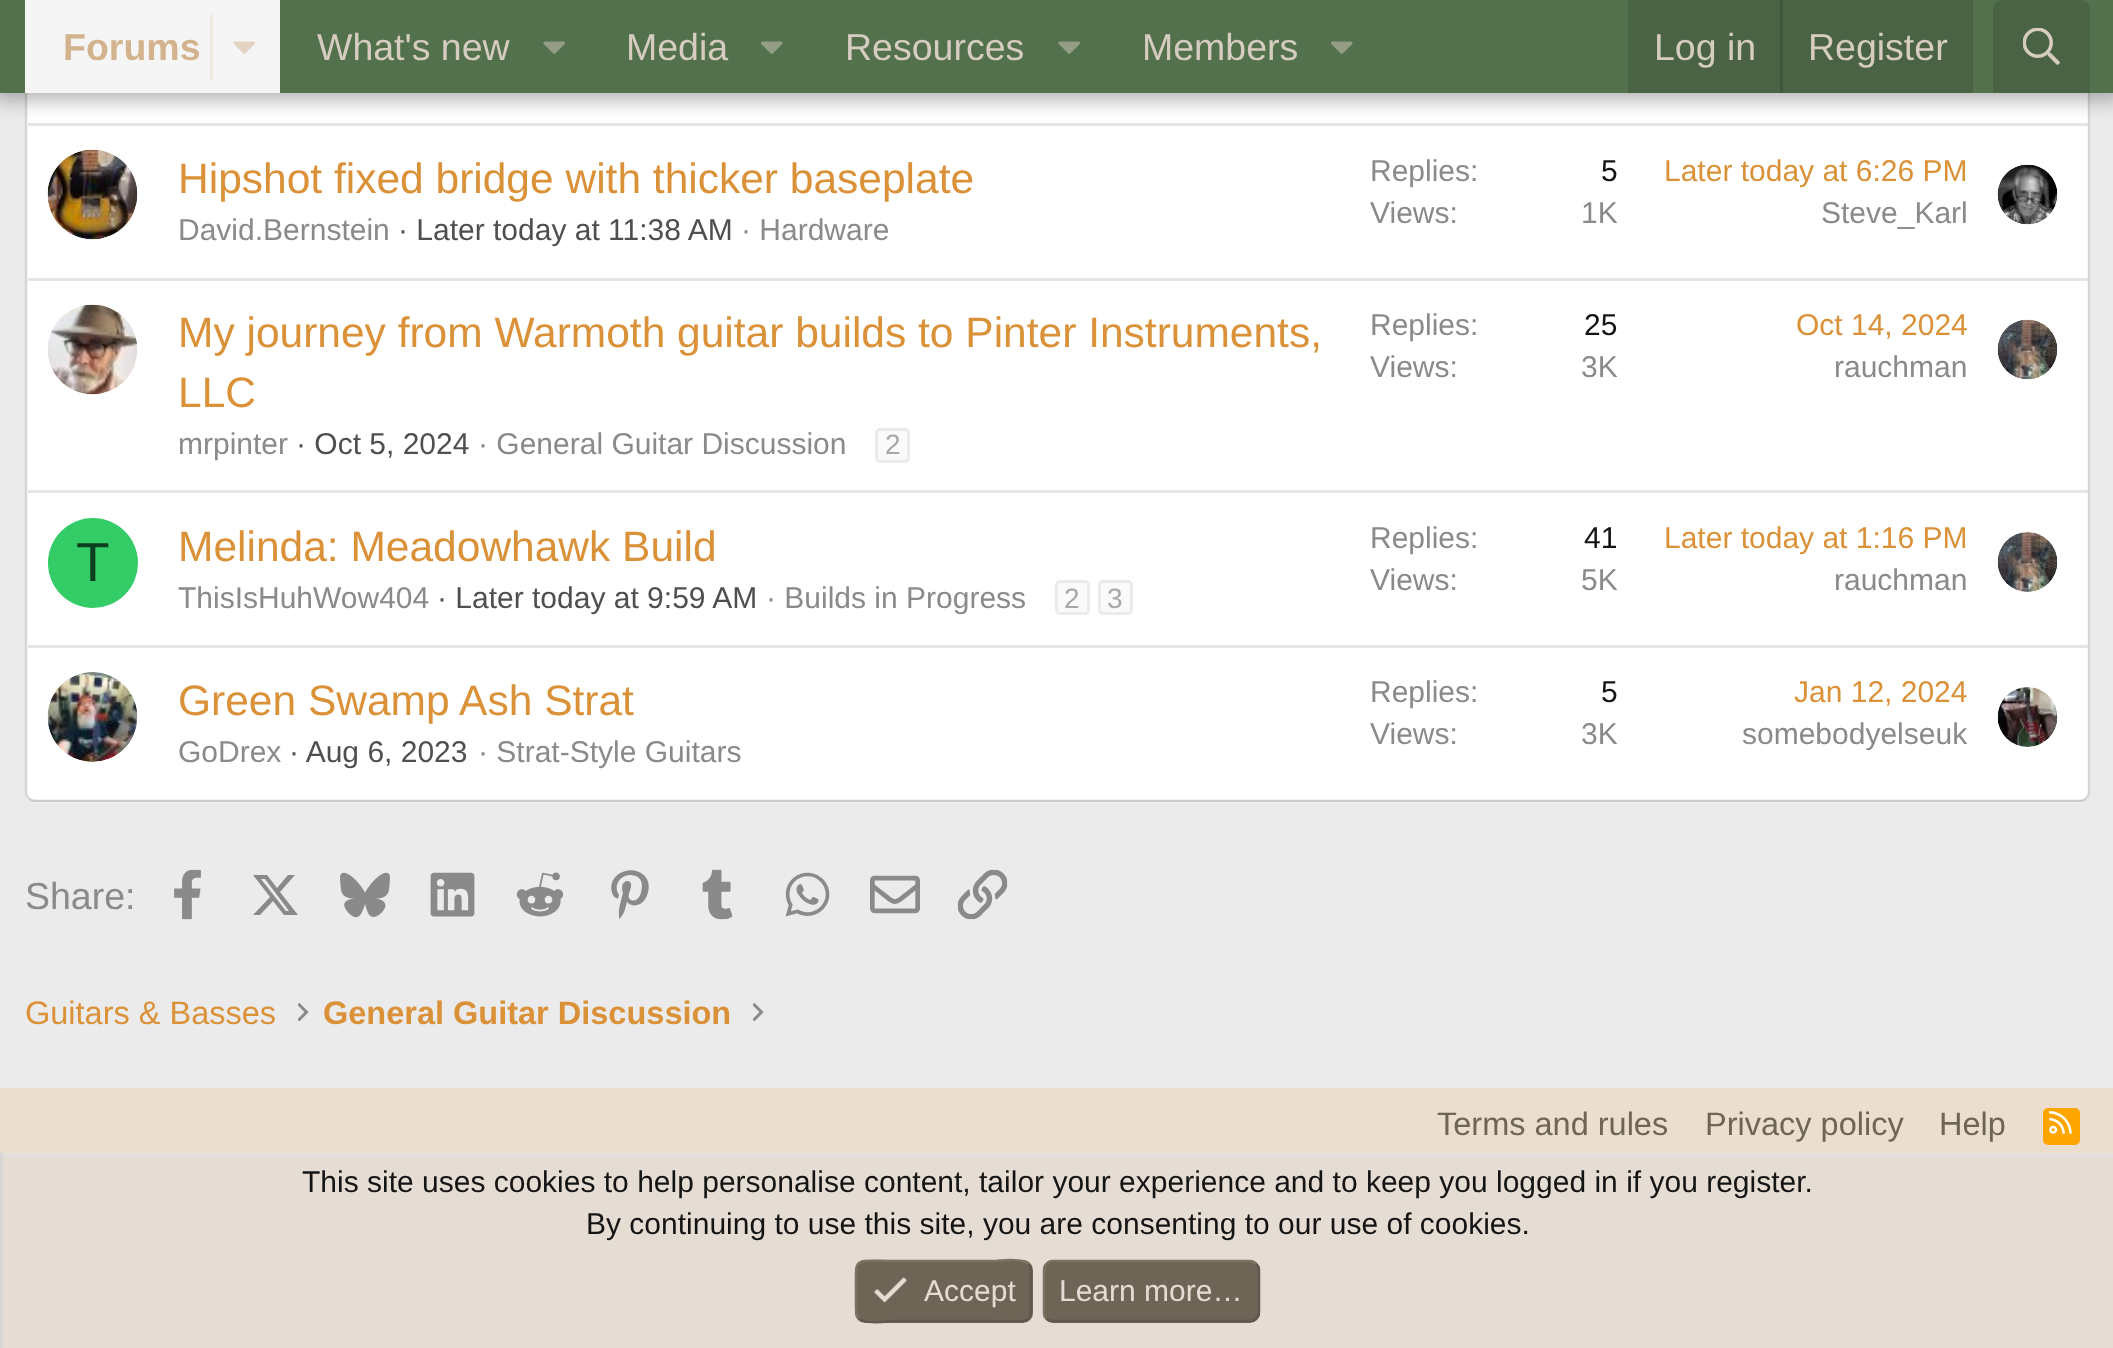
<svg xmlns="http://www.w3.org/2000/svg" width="2113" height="1348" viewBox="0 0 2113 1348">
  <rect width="100%" height="100%" fill="rgb(235,235,235)"/>
  <rect x="25" y="-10" width="2065" height="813" rx="10" fill="rgb(255,255,255)"/>
  <path d="M2086-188.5C2088-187 2089-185 2089-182.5V792.5C2089 795 2088 797 2086 798.5" fill="none" stroke="rgb(214,214,214)" stroke-width="2.5"/>
  <path d="M2086 798.5C2084.5 800.5 2082.5 801 2080 801H35C32.5 801 30.5 800.5 29 798.5" fill="none" stroke="rgb(204,204,204)" stroke-width="2.5"/>
  <path d="M29 798.5C27 797 26 795 26 792.5V-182.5C26-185 27-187 29-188.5" fill="none" stroke="rgb(214,214,214)" stroke-width="2.5"/>
  <rect x="28" y="123" width="2060" height="3" fill="rgb(229,229,229)"/>
  <rect x="-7" y="-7" width="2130" height="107" fill="rgba(0,0,0,0.3)" filter="blur(10px)"/>
  <rect x="0" y="0" width="2113" height="93" fill="rgb(82,113,76)"/>
  <rect x="25" y="0" width="255" height="93" fill="rgb(245,245,245)"/>
  <text x="63" y="60" font-family="Liberation Sans" font-size="37.5" font-weight="bold" fill="rgb(210,179,141)">Forums</text>
  <rect x="210" y="13" width="3" height="67" fill="rgb(239,233,227)"/>
  <image x="233" y="41" width="22" height="13" href="pic1.png"/>
  <text x="317" y="60" font-family="Liberation Sans" font-size="37.5" fill="rgb(214,204,192)">What's new</text>
  <image x="543" y="41" width="22" height="13" href="pic2.png"/>
  <text x="626" y="60" font-family="Liberation Sans" font-size="37.5" fill="rgb(214,204,192)">Media</text>
  <image x="761" y="41" width="22" height="13" href="pic3.png"/>
  <text x="845" y="60" font-family="Liberation Sans" font-size="37.5" fill="rgb(214,204,192)">Resources</text>
  <image x="1058" y="41" width="22" height="13" href="pic2.png"/>
  <text x="1142" y="60" font-family="Liberation Sans" font-size="37.5" fill="rgb(214,204,192)">Members</text>
  <image x="1331" y="41" width="22" height="13" href="pic3.png"/>
  <rect x="1628" y="0" width="345" height="93" fill="rgb(73,99,68)"/>
  <text x="1654" y="60" font-family="Liberation Sans" font-size="37.5" fill="rgb(214,204,192)">Log in</text>
  <rect x="1780" y="0" width="3" height="93" fill="rgb(65,87,61)"/>
  <text x="1808" y="60" font-family="Liberation Sans" font-size="37.5" fill="rgb(214,204,192)">Register</text>
  <path d="M2003 0H2080C2085.5 0 2090 4.5 2090 10V93H1993V10C1993 4.5 1997.5 0 2003 0Z" fill="rgb(73,99,68)"/>
  <image x="2023" y="28" width="37" height="37" href="pic4.png"/>
  <image x="47" y="149" width="91" height="91" href="pic5.png"/>
  <text x="178" y="193" font-family="Liberation Sans" font-size="42.5" fill="rgb(218,145,56)">Hipshot fixed bridge with thicker baseplate</text>
  <text x="178" y="240" font-family="Liberation Sans" font-size="30" fill="rgb(138,138,138)">David.Bernstein</text>
  <text x="398" y="240" font-family="Liberation Sans" font-size="30" fill="rgb(79,79,79)">· Later today at 11:38 AM</text>
  <g font-family="Liberation Sans" font-size="30" fill="rgb(138,138,138)">
    <text x="741" y="240">· Hardware</text>
    <text x="1370" y="181">Replies:</text>
  </g>
  <text x="1601" y="181" font-family="Liberation Sans" font-size="30" fill="rgb(20,20,20)">5</text>
  <g font-family="Liberation Sans" font-size="30" fill="rgb(138,138,138)">
    <text x="1370" y="223">Views:</text>
    <text x="1581" y="223">1K</text>
  </g>
  <text x="1664" y="181" font-family="Liberation Sans" font-size="30" fill="rgb(218,145,56)">Later today at 6:26 PM</text>
  <text x="1821" y="223" font-family="Liberation Sans" font-size="30" fill="rgb(138,138,138)">Steve_Karl</text>
  <image x="1997" y="164" width="61" height="61" href="pic6.png"/>
  <rect x="28" y="278" width="2060" height="3" fill="rgb(229,229,229)"/>
  <image x="48" y="304" width="90" height="91" href="pic7.png"/>
  <g font-family="Liberation Sans" font-size="42.5" fill="rgb(218,145,56)">
    <text>
      <tspan x="178" y="347">My journey from Warmoth guitar builds to Pinter Instruments,</tspan>
      <tspan x="178" y="407">LLC</tspan>
    </text>
  </g>
  <text x="178" y="454" font-family="Liberation Sans" font-size="30" fill="rgb(138,138,138)">mrpinter</text>
  <text x="296" y="454" font-family="Liberation Sans" font-size="30" fill="rgb(79,79,79)">· Oct 5, 2024</text>
  <text x="478" y="454" font-family="Liberation Sans" font-size="30" fill="rgb(138,138,138)">· General Guitar Discussion</text>
  <rect x="876.5" y="429.5" width="32" height="32" rx="3.5" fill="rgb(250,250,250)" stroke="rgb(235,235,235)" stroke-width="3"/>
  <text x="885" y="454" font-family="Liberation Sans" font-size="28" fill="rgb(167,167,167)">2</text>
  <text x="1370" y="335" font-family="Liberation Sans" font-size="30" fill="rgb(138,138,138)">Replies:</text>
  <text x="1584" y="335" font-family="Liberation Sans" font-size="30" fill="rgb(20,20,20)">25</text>
  <g font-family="Liberation Sans" font-size="30" fill="rgb(138,138,138)">
    <text x="1370" y="377">Views:</text>
    <text x="1581" y="377">3K</text>
  </g>
  <text x="1796" y="335" font-family="Liberation Sans" font-size="30" fill="rgb(218,145,56)">Oct 14, 2024</text>
  <text x="1834" y="377" font-family="Liberation Sans" font-size="30" fill="rgb(138,138,138)">rauchman</text>
  <image x="1997" y="319" width="61" height="61" href="pic8.png"/>
  <rect x="28" y="490" width="2060" height="3" fill="rgb(229,229,229)"/>
  <circle cx="93" cy="563" r="45" fill="rgb(51,204,102)"/>
  <text x="76" y="581" font-family="Liberation Sans" font-size="55" fill="rgb(15,61,31)">T</text>
  <text x="178" y="561" font-family="Liberation Sans" font-size="42.5" fill="rgb(218,145,56)">Melinda: Meadowhawk Build</text>
  <text x="178" y="608" font-family="Liberation Sans" font-size="30" fill="rgb(138,138,138)">ThisIsHuhWow404</text>
  <text x="437" y="608" font-family="Liberation Sans" font-size="30" fill="rgb(79,79,79)">· Later today at 9:59 AM</text>
  <text x="766" y="608" font-family="Liberation Sans" font-size="30" fill="rgb(138,138,138)">· Builds in Progress</text>
  <rect x="1056.5" y="581.5" width="32" height="32" rx="3.5" fill="rgb(250,250,250)" stroke="rgb(235,235,235)" stroke-width="3"/>
  <text x="1064" y="608" font-family="Liberation Sans" font-size="28" fill="rgb(167,167,167)">2</text>
  <rect x="1099.5" y="581.5" width="32" height="32" rx="3.5" fill="rgb(250,250,250)" stroke="rgb(235,235,235)" stroke-width="3"/>
  <text x="1107" y="608" font-family="Liberation Sans" font-size="28" fill="rgb(167,167,167)">3</text>
  <text x="1370" y="548" font-family="Liberation Sans" font-size="30" fill="rgb(138,138,138)">Replies:</text>
  <text x="1584" y="548" font-family="Liberation Sans" font-size="30" fill="rgb(20,20,20)">41</text>
  <g font-family="Liberation Sans" font-size="30" fill="rgb(138,138,138)">
    <text x="1370" y="590">Views:</text>
    <text x="1581" y="590">5K</text>
  </g>
  <text x="1664" y="548" font-family="Liberation Sans" font-size="30" fill="rgb(218,145,56)">Later today at 1:16 PM</text>
  <text x="1834" y="590" font-family="Liberation Sans" font-size="30" fill="rgb(138,138,138)">rauchman</text>
  <image x="1997" y="532" width="61" height="60" href="pic9.png"/>
  <rect x="28" y="645" width="2060" height="3" fill="rgb(229,229,229)"/>
  <image x="47" y="672" width="91" height="90" href="pic10.png"/>
  <text x="178" y="715" font-family="Liberation Sans" font-size="42.5" fill="rgb(218,145,56)">Green Swamp Ash Strat</text>
  <text x="178" y="762" font-family="Liberation Sans" font-size="30" fill="rgb(138,138,138)">GoDrex</text>
  <text x="289" y="762" font-family="Liberation Sans" font-size="30" fill="rgb(79,79,79)">· Aug 6, 2023</text>
  <g font-family="Liberation Sans" font-size="30" fill="rgb(138,138,138)">
    <text x="478" y="762">· Strat-Style Guitars</text>
    <text x="1370" y="702">Replies:</text>
  </g>
  <text x="1601" y="702" font-family="Liberation Sans" font-size="30" fill="rgb(20,20,20)">5</text>
  <g font-family="Liberation Sans" font-size="30" fill="rgb(138,138,138)">
    <text x="1370" y="744">Views:</text>
    <text x="1581" y="744">3K</text>
  </g>
  <text x="1794" y="702" font-family="Liberation Sans" font-size="30" fill="rgb(218,145,56)">Jan 12, 2024</text>
  <text x="1742" y="744" font-family="Liberation Sans" font-size="30" fill="rgb(138,138,138)">somebodyelseuk</text>
  <image x="1997" y="687" width="61" height="60" href="pic11.png"/>
  <text x="25" y="909" font-family="Liberation Sans" font-size="37.5" fill="rgb(138,138,138)">Share:</text>
  <image x="174" y="869" width="27" height="51" href="pic12.png"/>
  <path d="M288 875H295L280 892L298 915H284L273 901L260 915H253L270 897L253 875H267L277 888ZM286 911H289L265 879H261Z" fill="rgb(138,138,138)"/>
  <image x="340" y="872" width="50" height="46" href="pic13.png"/>
  <image x="430" y="872" width="45" height="45" href="pic14.png"/>
  <image x="516" y="872" width="48" height="45" href="pic15.png"/>
  <image x="611" y="870" width="38" height="49" href="pic16.png"/>
  <image x="702" y="869" width="31" height="51" href="pic17.png"/>
  <image x="785" y="872" width="45" height="45" href="pic18.png"/>
  <image x="870" y="875" width="50" height="39" href="pic19.png"/>
  <image x="957" y="869" width="51" height="51" href="pic20.png"/>
  <text x="25" y="1024" font-family="Liberation Sans" font-size="32.5" fill="rgb(218,145,56)">Guitars &amp; Basses</text>
  <image x="298" y="1003" width="11" height="19" href="pic21.png"/>
  <text x="323" y="1024" font-family="Liberation Sans" font-size="32.5" font-weight="bold" fill="rgb(218,145,56)">General Guitar Discussion</text>
  <image x="753" y="1003" width="11" height="19" href="pic21.png"/>
  <rect x="0" y="1088" width="2113" height="65" fill="rgb(235,222,207)"/>
  <g font-family="Liberation Sans" font-size="32.5" fill="rgb(110,101,87)">
    <text x="1437" y="1135">Terms and rules</text>
    <text x="1705" y="1135">Privacy policy</text>
    <text x="1939" y="1135">Help</text>
  </g>
  <rect x="2043" y="1108" width="37" height="37" rx="5" fill="rgb(255,165,0)"/>
  <image x="2049" y="1111" width="23" height="23" href="pic22.png"/>
  <rect x="3" y="1156" width="2110" height="192" fill="rgb(229,220,211)"/>
  <rect x="0" y="1153" width="2113" height="3" fill="rgb(224,224,224)"/>
  <rect x="0" y="1153" width="3" height="195" fill="rgb(214,214,214)"/>
  <g font-family="Liberation Sans" font-size="30" fill="rgb(20,20,20)">
    <text x="302" y="1192">This site uses cookies to help personalise content, tailor your experience and to keep you logged in if you register.</text>
    <text x="586" y="1234">By continuing to use this site, you are consenting to our use of cookies.</text>
  </g>
  <rect x="855" y="1260" width="178" height="63" rx="10" fill="rgb(110,101,87)"/>
  <path d="M1028.5 1264C1032 1267.5 1031 1272.5 1031 1277V1291C1031 1326.5 1034.5 1321 996 1321H891C890 1321 865 1325 859 1318.5" fill="none" stroke="rgb(96,88,76)" stroke-width="2.5"/>
  <path d="M859 1318.5C855.5 1315 856 1310 856 1305.5V1291C856 1256 853 1261 891 1261H996C997.5 1261 1022.5 1257.5 1028.5 1264" fill="none" stroke="rgb(124,114,98)" stroke-width="2.5"/>
  <image x="874" y="1277" width="33" height="26" href="pic23.png"/>
  <text x="924" y="1301" font-family="Liberation Sans" font-size="30" fill="rgb(229,220,211)">Accept</text>
  <rect x="1043" y="1260" width="217" height="63" rx="10" fill="rgb(110,101,87)"/>
  <path d="M1256 1264C1258 1265.5 1259 1267.5 1259 1270V1312.5C1259 1315 1258 1317 1256 1318.5C1254.5 1320.5 1252.5 1321 1250 1321H1052.5C1050 1321 1048 1320.5 1046.5 1318.5" fill="none" stroke="rgb(96,88,76)" stroke-width="2.5"/>
  <path d="M1046.5 1318.5C1044.5 1317 1044 1315 1044 1312.5V1270C1044 1267.5 1044.5 1265.5 1046.5 1264C1048 1262 1050 1261 1052.5 1261H1250C1252.5 1261 1254.5 1262 1256 1264" fill="none" stroke="rgb(124,114,98)" stroke-width="2.5"/>
  <text x="1059" y="1301" font-family="Liberation Sans" font-size="30" fill="rgb(229,220,211)">Learn more…</text>
</svg>
